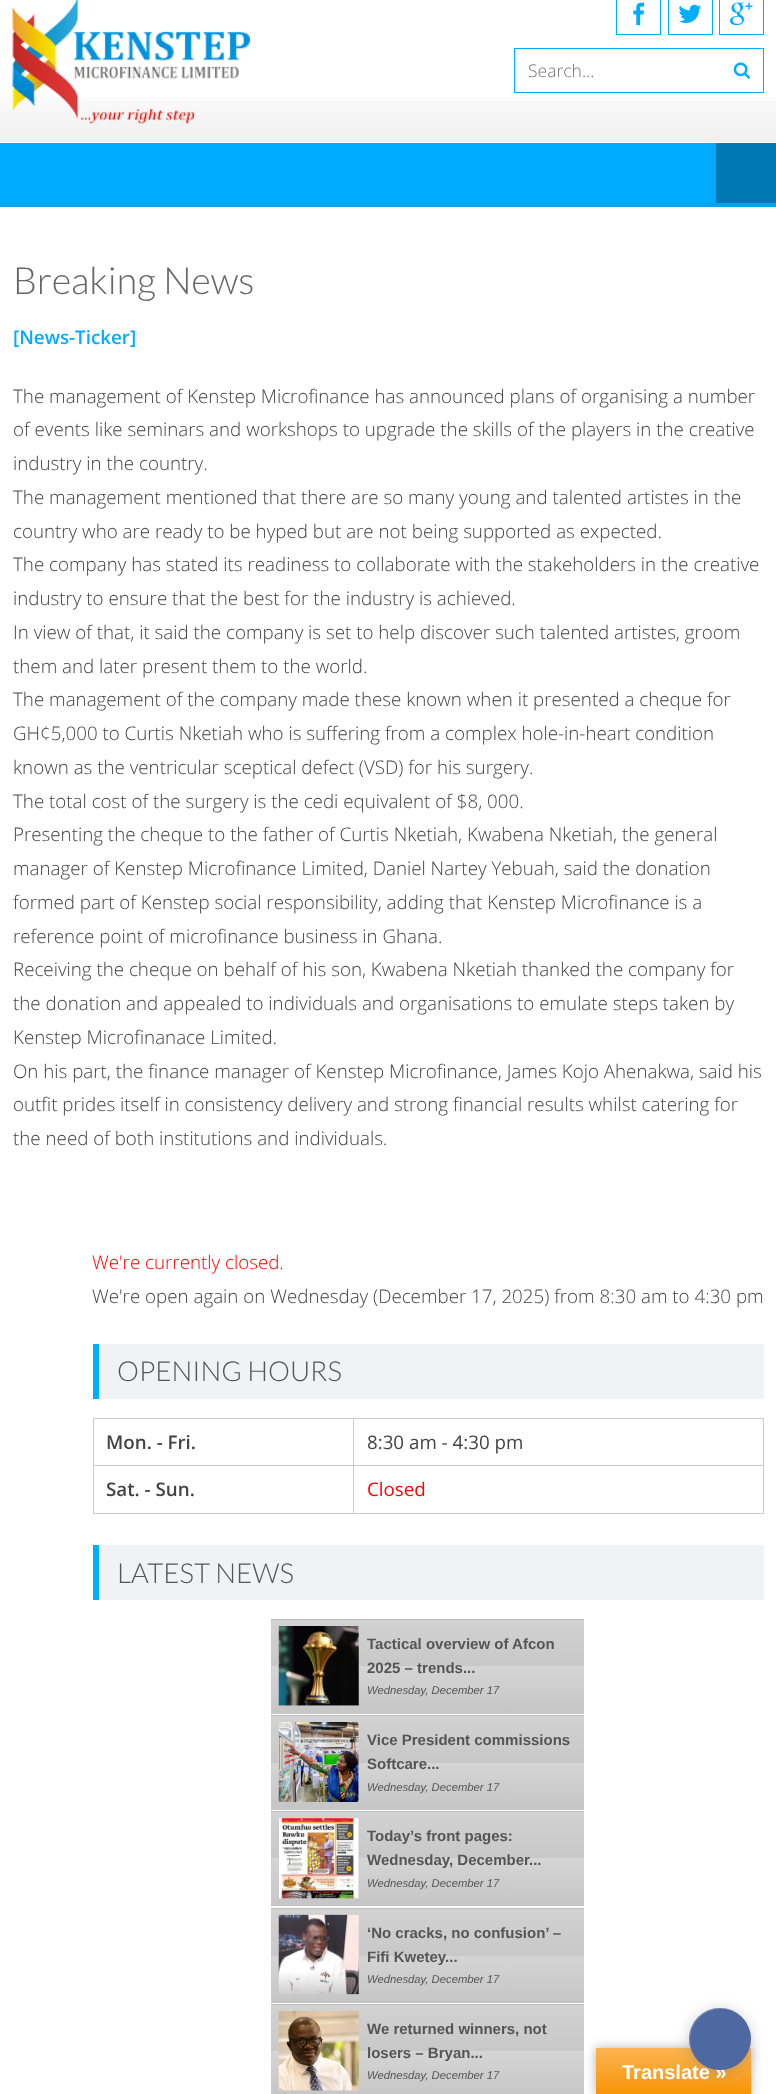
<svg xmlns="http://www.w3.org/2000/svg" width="776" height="2094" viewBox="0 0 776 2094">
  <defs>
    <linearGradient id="g1" gradientUnits="userSpaceOnUse" x1="428" y1="1619" x2="428" y2="1714"><stop offset="0" stop-color="rgb(136,136,136)"/><stop offset="0.01" stop-color="rgb(238,238,238)"/><stop offset="0.01" stop-color="rgb(210,210,210)"/><stop offset="0.5" stop-color="rgb(200,200,200)"/><stop offset="0.5" stop-color="rgb(213,213,213)"/><stop offset="1" stop-color="rgb(197,197,197)"/></linearGradient>
    <linearGradient id="g2" gradientUnits="userSpaceOnUse" x1="428" y1="1715" x2="428" y2="1810"><stop offset="0" stop-color="rgb(136,136,136)"/><stop offset="0.01" stop-color="rgb(238,238,238)"/><stop offset="0.01" stop-color="rgb(210,210,210)"/><stop offset="0.5" stop-color="rgb(200,200,200)"/><stop offset="0.5" stop-color="rgb(213,213,213)"/><stop offset="1" stop-color="rgb(197,197,197)"/></linearGradient>
    <linearGradient id="g3" gradientUnits="userSpaceOnUse" x1="428" y1="1811" x2="428" y2="1906"><stop offset="0" stop-color="rgb(136,136,136)"/><stop offset="0.01" stop-color="rgb(238,238,238)"/><stop offset="0.01" stop-color="rgb(210,210,210)"/><stop offset="0.5" stop-color="rgb(200,200,200)"/><stop offset="0.5" stop-color="rgb(213,213,213)"/><stop offset="1" stop-color="rgb(197,197,197)"/></linearGradient>
    <linearGradient id="g4" gradientUnits="userSpaceOnUse" x1="428" y1="1908" x2="428" y2="2003"><stop offset="0" stop-color="rgb(136,136,136)"/><stop offset="0.01" stop-color="rgb(238,238,238)"/><stop offset="0.01" stop-color="rgb(210,210,210)"/><stop offset="0.5" stop-color="rgb(200,200,200)"/><stop offset="0.5" stop-color="rgb(213,213,213)"/><stop offset="1" stop-color="rgb(197,197,197)"/></linearGradient>
    <linearGradient id="g5" gradientUnits="userSpaceOnUse" x1="428" y1="2004" x2="428" y2="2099"><stop offset="0" stop-color="rgb(136,136,136)"/><stop offset="0.01" stop-color="rgb(238,238,238)"/><stop offset="0.01" stop-color="rgb(210,210,210)"/><stop offset="0.5" stop-color="rgb(200,200,200)"/><stop offset="0.5" stop-color="rgb(213,213,213)"/><stop offset="1" stop-color="rgb(197,197,197)"/></linearGradient>
    <linearGradient id="g6" gradientUnits="userSpaceOnUse" x1="674" y1="2048" x2="674" y2="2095"><stop offset="0" stop-color="rgb(251,180,80)"/><stop offset="1" stop-color="rgb(248,148,6)"/></linearGradient>
  </defs>
  <rect width="100%" height="100%" fill="rgb(255,255,255)"/>
  <image x="0" y="97" width="776" height="45" href="pic1.png"/>
  <image x="12" y="0" width="238" height="124" href="pic2.png"/>
  <rect x="616.5" y="-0.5" width="44" height="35" fill="none" stroke="rgb(1,174,253)"/>
  <image x="633" y="2" width="12" height="24" href="pic3.png"/>
  <rect x="668.5" y="-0.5" width="44" height="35" fill="none" stroke="rgb(1,174,253)"/>
  <image x="679" y="4" width="23" height="19" href="pic4.png"/>
  <rect x="719.5" y="-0.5" width="44" height="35" fill="none" stroke="rgb(1,174,253)"/>
  <image x="730" y="2" width="23" height="24" href="pic5.png"/>
  <rect x="514.5" y="48.5" width="249" height="44" fill="none" stroke="rgb(1,174,253)"/>
  <text x="528" y="77" font-family="Open Sans" font-size="17.5" font-weight="300" fill="rgb(117,117,117)">Search...</text>
  <image x="733" y="62" width="17" height="17" href="pic6.png"/>
  <rect x="0" y="143" width="716" height="60" fill="rgb(0,171,255)"/>
  <rect x="0" y="203" width="776" height="4" fill="rgb(4,163,237)"/>
  <rect x="716" y="143" width="60" height="60" fill="rgb(0,120,179)"/>
  <text x="13" y="294" font-family="Lato" font-size="37.5" font-weight="300" fill="rgb(102,102,102)">Breaking News</text>
  <text x="13" y="344" font-family="Open Sans" font-size="18.75" font-weight="600" fill="rgb(1,174,253)">[News-Ticker]</text>
  <g font-family="Open Sans" font-size="18.75" font-weight="300" fill="rgb(68,68,68)">
    <text>
      <tspan x="13" y="403">The management of Kenstep Microfinance has announced plans of organising a number</tspan>
      <tspan x="13" y="436">of events like seminars and workshops to upgrade the skills of the players in the creative</tspan>
      <tspan x="13" y="470">industry in the country.</tspan>
      <tspan x="13" y="504">The management mentioned that there are so many young and talented artistes in the</tspan>
      <tspan x="13" y="538">country who are ready to be hyped but are not being supported as expected.</tspan>
      <tspan x="13" y="571">The company has stated its readiness to collaborate with the stakeholders in the creative</tspan>
      <tspan x="13" y="605">industry to ensure that the best for the industry is achieved.</tspan>
      <tspan x="13" y="639">In view of that, it said the company is set to help discover such talented artistes, groom</tspan>
      <tspan x="13" y="673">them and later present them to the world.</tspan>
      <tspan x="13" y="706">The management of the company made these known when it presented a cheque for</tspan>
      <tspan x="13" y="740">GH¢5,000 to Curtis Nketiah who is suffering from a complex hole-in-heart condition</tspan>
      <tspan x="13" y="774">known as the ventricular sceptical defect (VSD) for his surgery.</tspan>
      <tspan x="13" y="808">The total cost of the surgery is the cedi equivalent of $8, 000.</tspan>
      <tspan x="13" y="841">Presenting the cheque to the father of Curtis Nketiah, Kwabena Nketiah, the general</tspan>
      <tspan x="13" y="875">manager of Kenstep Microfinance Limited, Daniel Nartey Yebuah, said the donation</tspan>
      <tspan x="13" y="909">formed part of Kenstep social responsibility, adding that Kenstep Microfinance is a</tspan>
      <tspan x="13" y="943">reference point of microfinance business in Ghana.</tspan>
      <tspan x="13" y="976">Receiving the cheque on behalf of his son, Kwabena Nketiah thanked the company for</tspan>
      <tspan x="13" y="1010">the donation and appealed to individuals and organisations to emulate steps taken by</tspan>
      <tspan x="13" y="1044">Kenstep Microfinanace Limited.</tspan>
      <tspan x="13" y="1078">On his part, the finance manager of Kenstep Microfinance, James Kojo Ahenakwa, said his</tspan>
      <tspan x="13" y="1111">outfit prides itself in consistency delivery and strong financial results whilst catering for</tspan>
      <tspan x="13" y="1145">the need of both institutions and individuals.</tspan>
    </text>
  </g>
  <text x="92" y="1269" font-family="Open Sans" font-size="18.75" font-weight="300" fill="rgb(255,0,0)">We're currently closed.</text>
  <text x="92" y="1303" font-family="Open Sans" font-size="18.75" font-weight="300" fill="rgb(68,68,68)">We're open again on Wednesday (December 17, 2025) from 8:30 am to 4:30 pm</text>
  <rect x="99" y="1344" width="665" height="55" fill="rgb(241,242,243)"/>
  <rect x="93" y="1344" width="6" height="55" fill="rgb(1,174,253)"/>
  <text x="117" y="1381" font-family="Lato" font-size="27.5" font-weight="300" fill="rgb(85,85,85)">OPENING HOURS</text>
  <rect x="353" y="1418" width="411" height="1" fill="rgb(204,204,204)"/>
  <rect x="353" y="1465" width="411" height="1" fill="rgb(204,204,204)"/>
  <rect x="763" y="1465" width="1" height="49" fill="rgb(204,204,204)"/>
  <rect x="353" y="1513" width="411" height="1" fill="rgb(204,204,204)"/>
  <rect x="353" y="1465" width="1" height="49" fill="rgb(204,204,204)"/>
  <rect x="93" y="1465" width="261" height="1" fill="rgb(204,204,204)"/>
  <rect x="353" y="1418" width="1" height="48" fill="rgb(204,204,204)"/>
  <rect x="93" y="1418" width="261" height="1" fill="rgb(204,204,204)"/>
  <rect x="93" y="1513" width="261" height="1" fill="rgb(204,204,204)"/>
  <rect x="93" y="1465" width="1" height="49" fill="rgb(204,204,204)"/>
  <rect x="93" y="1418" width="1" height="48" fill="rgb(204,204,204)"/>
  <text x="106" y="1449" font-family="Open Sans" font-size="18.75" font-weight="600" fill="rgb(68,68,68)">Mon. - Fri.</text>
  <rect x="763" y="1418" width="1" height="48" fill="rgb(204,204,204)"/>
  <text x="367" y="1449" font-family="Open Sans" font-size="18.75" fill="rgb(68,68,68)">8:30 am - 4:30 pm</text>
  <text x="106" y="1496" font-family="Open Sans" font-size="18.75" font-weight="600" fill="rgb(68,68,68)">Sat. - Sun.</text>
  <text x="367" y="1496" font-family="Open Sans" font-size="18.75" fill="rgb(255,0,0)">Closed</text>
  <rect x="99" y="1545" width="665" height="55" fill="rgb(241,242,243)"/>
  <rect x="93" y="1545" width="6" height="55" fill="rgb(1,174,253)"/>
  <text x="117" y="1583" font-family="Lato" font-size="27.5" font-weight="300" fill="rgb(85,85,85)">LATEST NEWS</text>
  <rect x="271" y="1619" width="313" height="95" fill="url(#g1)"/>
  <image x="278" y="1626" width="81" height="80" href="pic7.png"/>
  <g font-family="Liberation Sans" font-size="15" font-weight="bold" fill="rgb(85,85,85)">
    <text>
      <tspan x="367" y="1649">Tactical overview of Afcon</tspan>
      <tspan x="367" y="1673">2025 – trends...</tspan>
    </text>
  </g>
  <text x="367" y="1694" font-family="Liberation Sans" font-size="11.25" font-style="italic" fill="rgb(85,85,85)">Wednesday, December 17</text>
  <rect x="271" y="1715" width="313" height="95" fill="url(#g2)"/>
  <image x="278" y="1722" width="81" height="80" href="pic8.png"/>
  <g font-family="Liberation Sans" font-size="15" font-weight="bold" fill="rgb(85,85,85)">
    <text>
      <tspan x="367" y="1745">Vice President commissions</tspan>
      <tspan x="367" y="1769">Softcare...</tspan>
    </text>
  </g>
  <text x="367" y="1791" font-family="Liberation Sans" font-size="11.25" font-style="italic" fill="rgb(85,85,85)">Wednesday, December 17</text>
  <rect x="271" y="1811" width="313" height="95" fill="url(#g3)"/>
  <image x="279" y="1818" width="80" height="81" href="pic9.png"/>
  <g font-family="Liberation Sans" font-size="15" font-weight="bold" fill="rgb(85,85,85)">
    <text>
      <tspan x="367" y="1841">Today’s front pages:</tspan>
      <tspan x="367" y="1865">Wednesday, December...</tspan>
    </text>
  </g>
  <text x="367" y="1887" font-family="Liberation Sans" font-size="11.25" font-style="italic" fill="rgb(85,85,85)">Wednesday, December 17</text>
  <rect x="271" y="1908" width="313" height="95" fill="url(#g4)"/>
  <image x="278" y="1914" width="81" height="81" href="pic10.png"/>
  <g font-family="Liberation Sans" font-size="15" font-weight="bold" fill="rgb(85,85,85)">
    <text>
      <tspan x="367" y="1938">‘No cracks, no confusion’ –</tspan>
      <tspan x="367" y="1962">Fifi Kwetey...</tspan>
    </text>
  </g>
  <text x="367" y="1983" font-family="Liberation Sans" font-size="11.25" font-style="italic" fill="rgb(85,85,85)">Wednesday, December 17</text>
  <rect x="271" y="2004" width="313" height="90" fill="url(#g5)"/>
  <image x="278" y="2011" width="81" height="80" href="pic11.png"/>
  <g font-family="Liberation Sans" font-size="15" font-weight="bold" fill="rgb(85,85,85)">
    <text>
      <tspan x="367" y="2034">We returned winners, not</tspan>
      <tspan x="367" y="2058">losers – Bryan...</tspan>
    </text>
  </g>
  <text x="367" y="2079" font-family="Liberation Sans" font-size="11.25" font-style="italic" fill="rgb(85,85,85)">Wednesday, December 17</text>
  <rect x="596" y="2048" width="155" height="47" fill="rgba(0,0,0,0.3)" filter="blur(5.5px)"/>
  <rect x="596" y="2048" width="155" height="46" fill="url(#g6)"/>
  <rect x="689" y="2010" width="62" height="63" rx="31" fill="rgba(128,128,128,0.4)" filter="blur(7px)"/>
  <text x="622" y="2079" font-family="Liberation Sans" font-size="20" font-weight="bold" fill="rgb(255,255,255)">Translate »</text>
  <circle cx="720" cy="2039" r="31" fill="rgb(78,105,162)"/>
  <path d="M721 2009C728 2009 734 2011 739 2015C727 2005 709 2006 698 2017C685 2030 686 2051 700 2062C680 2044 693 2009 721 2009Z" fill="rgba(255,255,255,0.15)"/>
</svg>
